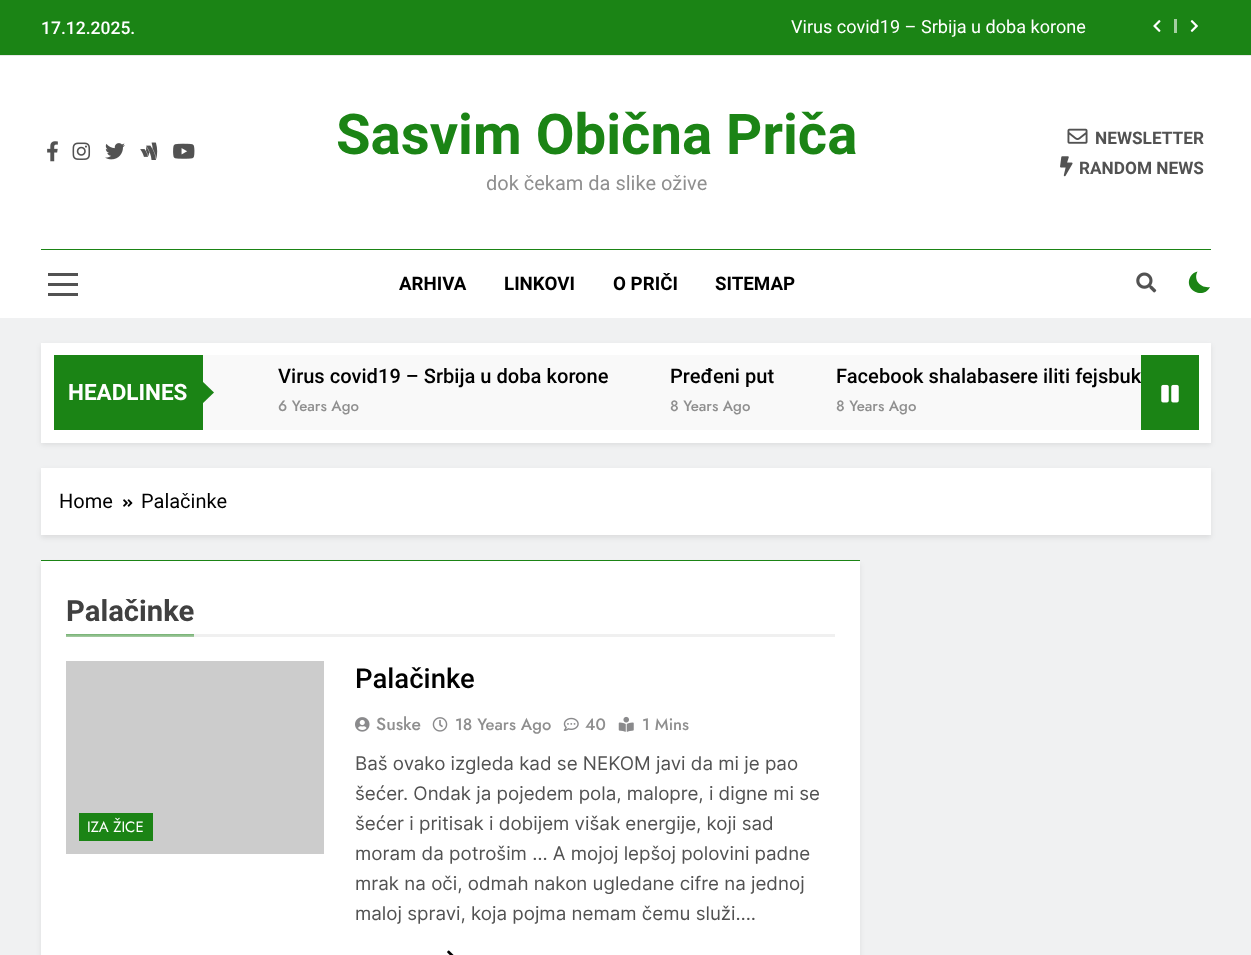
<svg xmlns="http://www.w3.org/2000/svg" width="1251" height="955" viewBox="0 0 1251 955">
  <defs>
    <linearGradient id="g1" gradientUnits="userSpaceOnUse" x1="130" y1="629" x2="130" y2="641"><stop offset="0" stop-color="rgb(27,132,21)"/><stop offset="1" stop-color="rgb(240,240,240)"/></linearGradient>
  </defs>
  <rect width="100%" height="100%" fill="rgb(240,241,242)"/>
  <rect x="0" y="0" width="1251" height="55" fill="rgb(27,132,21)"/>
  <rect x="0" y="55" width="1251" height="1" fill="rgb(232,232,232)"/>
  <text x="41" y="34" font-family="Roboto" font-size="17.5" font-weight="500" fill="rgb(255,255,255)">17.12.2025.</text>
  <text x="791" y="33" font-family="Roboto" font-size="18.1" fill="rgb(255,255,255)">Virus covid19 – Srbija u doba korone</text>
  <image x="1153" y="20" width="8" height="12" href="pic1.png"/>
  <rect x="1174" y="19" width="3" height="14" fill="rgb(164,206,161)"/>
  <image x="1190" y="20" width="8" height="12" href="pic2.png"/>
  <rect x="0" y="56" width="1251" height="262" fill="rgb(255,255,255)"/>
  <image x="47" y="141" width="11" height="21" href="pic3.png"/>
  <image x="72" y="142" width="19" height="18" href="pic4.png"/>
  <image x="105" y="143" width="20" height="17" href="pic5.png"/>
  <image x="140" y="142" width="18" height="18" href="pic6.png"/>
  <image x="173" y="143" width="22" height="16" href="pic7.png"/>
  <text x="336" y="154" font-family="Roboto" font-size="56.25" font-weight="bold" fill="rgb(27,132,21)">Sasvim Obična Priča</text>
  <text x="486" y="190" font-family="Roboto" font-size="20" fill="rgb(143,143,143)">dok čekam da slike ožive</text>
  <image x="1067" y="128" width="21" height="16" href="pic8.png"/>
  <text x="1095" y="144" font-family="Roboto" font-size="17.25" font-weight="bold" fill="rgb(82,82,82)">NEWSLETTER</text>
  <image x="1060" y="156" width="13" height="21" href="pic9.png"/>
  <text x="1079" y="174" font-family="Roboto" font-size="17.25" font-weight="bold" fill="rgb(82,82,82)">RANDOM NEWS</text>
  <rect x="41" y="249" width="1170" height="1" fill="rgb(27,132,21)"/>
  <rect x="48" y="273" width="30" height="3" fill="rgb(82,82,82)"/>
  <rect x="48" y="283" width="30" height="3" fill="rgb(82,82,82)"/>
  <rect x="48" y="293" width="30" height="3" fill="rgb(82,82,82)"/>
  <g font-family="Roboto" font-size="18.75" font-weight="bold" fill="rgb(0,0,0)">
    <text x="399" y="290">ARHIVA</text>
    <text x="504" y="290">LINKOVI</text>
    <text x="613" y="290">O PRIČI</text>
    <text x="715" y="290">SITEMAP</text>
  </g>
  <image x="1136" y="272" width="21" height="21" href="pic10.png"/>
  <path d="M1210 287C1200.5 288.5 1193 280 1197.5 271.5C1194.5 272 1192 274 1190.5 276.5C1183 290 1203.5 300 1210 287Z" fill="rgb(27,132,21)"/>
  <rect x="41" y="345" width="1170" height="100" fill="rgba(0,0,0,0.08)" filter="blur(2.5px)"/>
  <rect x="41" y="343" width="1170" height="100" fill="rgb(255,255,255)"/>
  <rect x="54" y="355" width="149" height="75" fill="rgb(27,132,21)"/>
  <text x="68" y="400" font-family="Roboto" font-size="22.5" font-weight="bold" fill="rgb(255,255,255)">HEADLINES</text>
  <rect x="203" y="355" width="938" height="75" fill="rgb(249,249,249)"/>
  <path d="M201 405V380L214 392.5Z" fill="rgb(27,132,21)"/>
  <text x="278" y="383" font-family="Roboto" font-size="20.1" font-weight="500" fill="rgb(0,0,0)">Virus covid19 – Srbija u doba korone</text>
  <text x="278" y="411" font-family="Jost" font-size="15" font-weight="500" fill="rgb(143,143,143)">6 Years Ago</text>
  <text x="670" y="383" font-family="Roboto" font-size="20.1" font-weight="500" fill="rgb(0,0,0)">Pređeni put</text>
  <text x="670" y="411" font-family="Jost" font-size="15" font-weight="500" fill="rgb(143,143,143)">8 Years Ago</text>
  <text x="836" y="383" font-family="Roboto" font-size="20.1" font-weight="500" fill="rgb(0,0,0)">Facebook shalabasere iliti fejsbuk</text>
  <text x="836" y="411" font-family="Jost" font-size="15" font-weight="500" fill="rgb(143,143,143)">8 Years Ago</text>
  <rect x="1141" y="355" width="58" height="75" fill="rgb(27,132,21)"/>
  <image x="1161" y="384" width="18" height="19" href="pic11.png"/>
  <rect x="41" y="470" width="1170" height="68" fill="rgba(0,0,0,0.08)" filter="blur(2.5px)"/>
  <rect x="41" y="468" width="1170" height="67" fill="rgb(255,255,255)"/>
  <text x="59" y="508" font-family="Roboto" font-size="20" fill="rgb(0,0,0)">Home</text>
  <image x="123" y="499" width="10" height="8" href="pic12.png"/>
  <text x="141" y="508" font-family="Roboto" font-size="20" fill="rgb(0,0,0)">Palačinke</text>
  <rect x="41" y="564" width="819" height="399" fill="rgba(0,0,0,0.08)" filter="blur(2.5px)"/>
  <rect x="41" y="561" width="819" height="394" fill="rgb(255,255,255)"/>
  <rect x="41" y="560" width="819" height="1" fill="rgb(27,132,21)"/>
  <rect x="194" y="634" width="641" height="3" fill="rgb(240,240,240)"/>
  <text x="66" y="621" font-family="Roboto" font-size="29.25" font-weight="bold" fill="rgb(64,64,64)">Palačinke</text>
  <rect x="66" y="634" width="128" height="3" fill="url(#g1)"/>
  <rect x="66" y="661" width="258" height="193" fill="rgb(204,204,204)"/>
  <rect x="79" y="813" width="74" height="28" fill="rgb(27,132,21)"/>
  <text x="87" y="832" font-family="Jost" font-size="15" fill="rgb(255,255,255)">IZA ŽICE</text>
  <text x="355" y="688" font-family="Roboto" font-size="27.5" font-weight="500" fill="rgb(0,0,0)">Palačinke</text>
  <image x="355" y="717" width="15" height="15" href="pic13.png"/>
  <text x="376" y="730" font-family="Jost" font-size="17.5" font-weight="500" fill="rgb(143,143,143)">Suske</text>
  <image x="432" y="717" width="16" height="15" href="pic14.png"/>
  <text x="455" y="730" font-family="Jost" font-size="16.5" font-weight="500" fill="rgb(143,143,143)">18 Years Ago</text>
  <image x="563" y="717" width="16" height="14" href="pic15.png"/>
  <text x="585" y="730" font-family="Jost" font-size="16.5" font-weight="500" fill="rgb(143,143,143)">40</text>
  <image x="618" y="716" width="16" height="16" href="pic16.png"/>
  <text x="642" y="730" font-family="Jost" font-size="16.5" font-weight="500" fill="rgb(143,143,143)">1 Mins</text>
  <g font-family="Inter" font-size="18.75" fill="rgb(82,82,82)">
    <text>
      <tspan x="355" y="770">Baš ovako izgleda kad se NEKOM javi da mi je pao</tspan>
      <tspan x="355" y="800">šećer. Ondak ja pojedem pola, malopre, i digne mi se</tspan>
      <tspan x="355" y="830">šećer i pritisak i dobijem višak energije, koji sad</tspan>
      <tspan x="355" y="860">moram da potrošim … A mojoj lepšoj polovini padne</tspan>
      <tspan x="355" y="890">mrak na oči, odmah nakon ugledane cifre na jednoj</tspan>
      <tspan x="355" y="920">maloj spravi, koja pojma nemam čemu služi….</tspan>
    </text>
  </g>
  <image x="447" y="950" width="7" height="5" href="pic17.png"/>
</svg>
